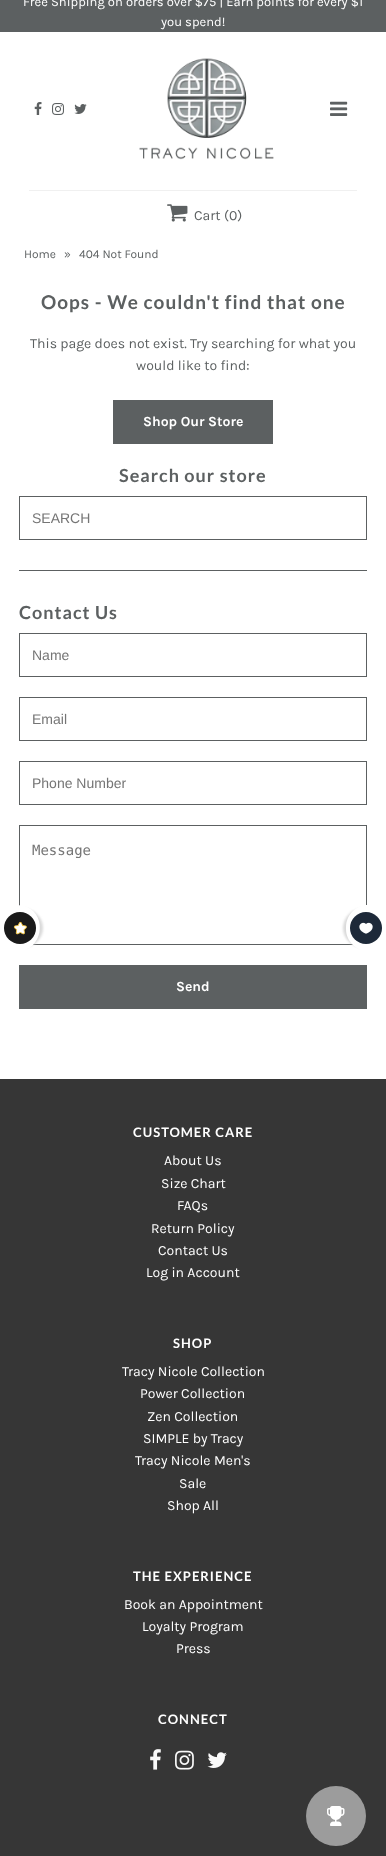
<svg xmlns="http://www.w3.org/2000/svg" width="386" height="1856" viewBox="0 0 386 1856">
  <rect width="100%" height="100%" fill="rgb(255,255,255)"/>
  <rect x="0" y="0" width="386" height="32" fill="rgb(92,96,97)"/>
  <g font-family="Karla" font-size="13" fill="rgb(255,255,255)">
    <text x="23" y="6">Free Shipping on orders over $75 | Earn points for every $1</text>
    <text x="161" y="26">you spend!</text>
  </g>
  <image x="34" y="102" width="8" height="13" href="pic1.png"/>
  <image x="52" y="103" width="12" height="12" href="pic2.png"/>
  <image x="74" y="104" width="13" height="10" href="pic3.png"/>
  <image x="139" y="58" width="135" height="102" href="pic4.png"/>
  <image x="330" y="101" width="18" height="15" href="pic5.png"/>
  <rect x="29" y="190" width="328" height="1" fill="rgb(240,240,240)"/>
  <image x="167" y="204" width="21" height="18" href="pic6.png"/>
  <text x="194" y="220" font-family="Karla" font-size="14" fill="rgb(92,96,97)">Cart (0)</text>
  <g font-family="Karla" font-size="12" fill="rgb(92,96,97)">
    <text x="24" y="258">Home</text>
    <text x="64" y="258">»</text>
    <text x="79" y="258">404 Not Found</text>
  </g>
  <text x="41" y="309" font-family="Lato" font-size="19" font-weight="bold" letter-spacing="1" fill="rgb(92,96,97)">Oops - We couldn't find that one</text>
  <g font-family="Karla" font-size="14" fill="rgb(92,96,97)">
    <text x="30" y="348">This page does not exist. Try searching for what you</text>
    <text x="136" y="370">would like to find:</text>
  </g>
  <rect x="113" y="400" width="160" height="44" fill="rgb(92,96,97)"/>
  <text x="143" y="426" font-family="Karla" font-size="14" font-weight="bold" fill="rgb(255,255,255)">Shop Our Store</text>
  <text x="119" y="482" font-family="Lato" font-size="18" font-weight="bold" letter-spacing="1" fill="rgb(92,96,97)">Search our store</text>
  <rect x="19.5" y="496.5" width="347" height="43" fill="none" stroke="rgb(92,96,97)"/>
  <text x="32" y="523" font-family="Liberation Sans" font-size="14" fill="rgb(117,117,117)">SEARCH</text>
  <rect x="19" y="570" width="348" height="1" fill="rgb(92,96,97)"/>
  <text x="19" y="619" font-family="Lato" font-size="18" font-weight="bold" letter-spacing="1" fill="rgb(92,96,97)">Contact Us</text>
  <rect x="19.5" y="633.5" width="347" height="43" fill="none" stroke="rgb(92,96,97)"/>
  <text x="32" y="660" font-family="Liberation Sans" font-size="14" fill="rgb(117,117,117)">Name</text>
  <rect x="19.5" y="697.5" width="347" height="43" fill="none" stroke="rgb(92,96,97)"/>
  <text x="32" y="724" font-family="Liberation Sans" font-size="14" fill="rgb(117,117,117)">Email</text>
  <rect x="19.5" y="761.5" width="347" height="43" fill="none" stroke="rgb(92,96,97)"/>
  <text x="32" y="788" font-family="Liberation Sans" font-size="14" fill="rgb(117,117,117)">Phone Number</text>
  <rect x="19.5" y="825.5" width="347" height="119" fill="none" stroke="rgb(92,96,97)"/>
  <text x="32" y="855" font-family="DejaVu Sans Mono" font-size="14" fill="rgb(117,117,117)">Message</text>
  <rect x="19" y="965" width="348" height="44" fill="rgb(92,96,97)"/>
  <text x="176" y="991" font-family="Karla" font-size="14" font-weight="bold" fill="rgb(255,255,255)">Send</text>
  <rect x="0" y="1079" width="386" height="777" fill="rgb(54,54,54)"/>
  <text x="133" y="1137" font-family="Lato" font-size="13" font-weight="bold" letter-spacing="1" fill="rgb(255,255,255)">CUSTOMER CARE</text>
  <g font-family="Karla" font-size="14" fill="rgb(255,255,255)">
    <text x="164" y="1165">About Us</text>
    <text x="161" y="1188">Size Chart</text>
    <text x="177" y="1210">FAQs</text>
    <text x="151" y="1233">Return Policy</text>
    <text x="158" y="1255">Contact Us</text>
    <text x="146" y="1277">Log in Account</text>
  </g>
  <text x="173" y="1348" font-family="Lato" font-size="13" font-weight="bold" letter-spacing="1" fill="rgb(255,255,255)">SHOP</text>
  <g font-family="Karla" font-size="14" fill="rgb(255,255,255)">
    <text x="122" y="1376">Tracy Nicole Collection</text>
    <text x="140" y="1398">Power Collection</text>
    <text x="147" y="1421">Zen Collection</text>
    <text x="143" y="1443">SIMPLE by Tracy</text>
    <text x="135" y="1465">Tracy Nicole Men's</text>
    <text x="179" y="1488">Sale</text>
    <text x="167" y="1510">Shop All</text>
  </g>
  <text x="133" y="1581" font-family="Lato" font-size="13" font-weight="bold" letter-spacing="1" fill="rgb(255,255,255)">THE EXPERIENCE</text>
  <g font-family="Karla" font-size="14" fill="rgb(255,255,255)">
    <text x="124" y="1609">Book an Appointment</text>
    <text x="142" y="1631">Loyalty Program</text>
    <text x="176" y="1653">Press</text>
  </g>
  <text x="158" y="1724" font-family="Lato" font-size="13" font-weight="bold" letter-spacing="1" fill="rgb(255,255,255)">CONNECT</text>
  <image x="150" y="1749" width="11" height="21" href="pic7.png"/>
  <image x="175" y="1750" width="19" height="20" href="pic8.png"/>
  <image x="207" y="1752" width="20" height="16" href="pic9.png"/>
  <rect x="-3" y="908" width="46" height="40" rx="22" fill="rgb(218,218,218)" filter="blur(1px)"/>
  <path d="M0 951V905C8 905 19 904 27 907C48 916 42 951 18 951Z" fill="rgb(255,255,255)"/>
  <circle cx="20" cy="928" r="16" fill="rgb(26,26,26)"/>
  <image x="13" y="921" width="14" height="14" href="pic10.png"/>
  <rect x="343" y="908" width="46" height="40" rx="22" fill="rgb(218,218,218)" filter="blur(1px)"/>
  <path d="M346 929V927C346 915 356 905 368 905H386V951H368C356 951 346 941 346 929Z" fill="rgb(255,255,255)"/>
  <circle cx="366" cy="928" r="16" fill="rgb(29,41,57)"/>
  <image x="359" y="922" width="14" height="12" href="pic11.png"/>
  <circle cx="336" cy="1816" r="30" fill="rgb(156,156,156)"/>
  <image x="327" y="1806" width="18" height="20" href="pic12.png"/>
</svg>
